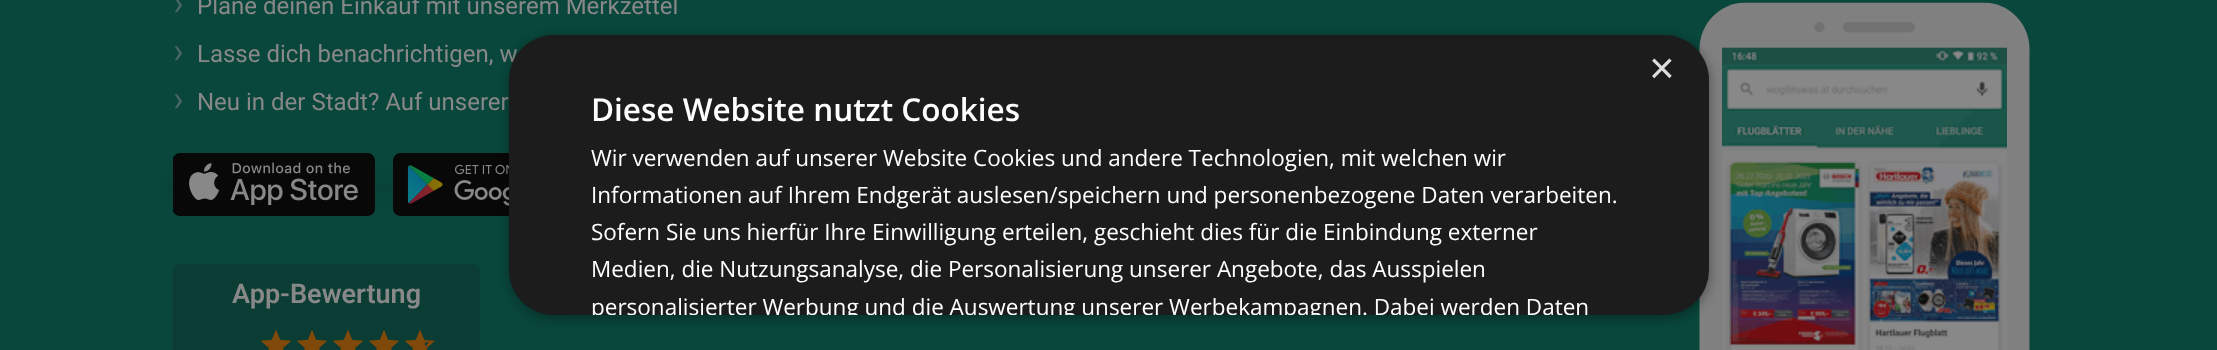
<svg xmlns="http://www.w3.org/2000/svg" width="2217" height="350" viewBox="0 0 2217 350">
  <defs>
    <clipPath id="clip1"><rect x="402" y="327" width="23" height="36"/></clipPath>
    <clipPath id="clip2"><rect x="509" y="35" width="1200" height="280" rx="45"/></clipPath>
  </defs>
  <rect width="100%" height="100%" fill="rgb(9,70,59)"/>
  <text x="173" y="15" font-family="Roboto" font-size="36" fill="rgb(73,103,98)">›</text>
  <text x="197" y="14" font-family="Roboto" font-size="24" fill="rgb(136,136,136)">Plane deinen Einkauf mit unserem Merkzettel</text>
  <text x="173" y="63" font-family="Roboto" font-size="36" fill="rgb(73,103,98)">›</text>
  <text x="197" y="62" font-family="Roboto" font-size="24" fill="rgb(136,136,136)">Lasse dich benachrichtigen, w</text>
  <text x="173" y="111" font-family="Roboto" font-size="36" fill="rgb(73,103,98)">›</text>
  <text x="197" y="110" font-family="Roboto" font-size="24" fill="rgb(136,136,136)">Neu in der Stadt? Auf unserer</text>
  <rect x="179" y="185" width="190" height="6" fill="rgb(25,25,25)" filter="blur(9px)"/>
  <image x="173" y="153" width="202" height="63" href="pic1.png"/>
  <rect x="399" y="185" width="191" height="6" fill="rgb(25,25,25)" filter="blur(9px)"/>
  <image x="393" y="153" width="116" height="63" href="pic2.png"/>
  <rect x="173" y="264" width="307" height="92" rx="6" fill="rgb(12,61,52)"/>
  <text x="232" y="303" font-family="Roboto" font-size="27" font-weight="600" fill="rgb(136,136,136)">App-Bewertung</text>
  <image x="261" y="330" width="30" height="20" href="pic3.png"/>
  <path d="M276 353L285.5 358.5L283 348L291 341L280 340L276 330L272 340L261 341L269 348L266.5 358.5Z" fill="rgb(129,73,9)"/>
  <image x="297" y="330" width="30" height="20" href="pic3.png"/>
  <path d="M312 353L321.5 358.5L319 348L327 341L316 340L312 330L308 340L297 341L305 348L302.5 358.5Z" fill="rgb(129,73,9)"/>
  <image x="333" y="330" width="30" height="20" href="pic3.png"/>
  <path d="M348 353L357.5 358.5L355 348L363 341L352 340L348 330L344 340L333 341L341 348L338.5 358.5Z" fill="rgb(129,73,9)"/>
  <image x="369" y="330" width="30" height="20" href="pic3.png"/>
  <path d="M384 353L393.5 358.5L391 348L399 341L388 340L384 330L380 340L369 341L377 348L374.5 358.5Z" fill="rgb(129,73,9)"/>
  <image x="405" y="330" width="30" height="20" href="pic3.png"/>
  <g clip-path="url(#clip1)">
    <path d="M420 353L429.5 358.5L427 348L435 341L424 340L420 330L416 340L405 341L413 348L410.5 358.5Z" fill="rgb(129,73,9)"/>
  </g>
  <image x="1699" y="2" width="331" height="348" href="pic4.png"/>
  <rect x="510" y="38" width="1200" height="280" rx="45" fill="rgba(0,0,0,0.35)" filter="blur(6px)"/>
  <rect x="509" y="35" width="1200" height="280" rx="45" fill="rgb(28,28,28)"/>
  <text x="1649" y="83" font-family="Liberation Sans" font-size="44" fill="rgb(221,221,221)">×</text>
  <text x="591" y="121" font-family="Open Sans" font-size="31.5" font-weight="600" fill="rgb(255,255,255)">Diese Website nutzt Cookies</text>
  <g font-family="Open Sans" font-size="22.5" fill="rgb(255,255,255)">
    <text>
      <tspan x="591" y="166">Wir verwenden auf unserer Website Cookies und andere Technologien, mit welchen wir</tspan>
      <tspan x="591" y="203">Informationen auf Ihrem Endgerät auslesen/speichern und personenbezogene Daten verarbeiten.</tspan>
      <tspan x="591" y="240">Sofern Sie uns hierfür Ihre Einwilligung erteilen, geschieht dies für die Einbindung externer</tspan>
      <tspan x="591" y="277">Medien, die Nutzungsanalyse, die Personalisierung unserer Angebote, das Ausspielen</tspan>
    </text>
  </g>
  <g clip-path="url(#clip2)">
    <text x="591" y="315" font-family="Open Sans" font-size="22.5" fill="rgb(255,255,255)">personalisierter Werbung und die Auswertung unserer Werbekampagnen. Dabei werden Daten</text>
  </g>
</svg>
